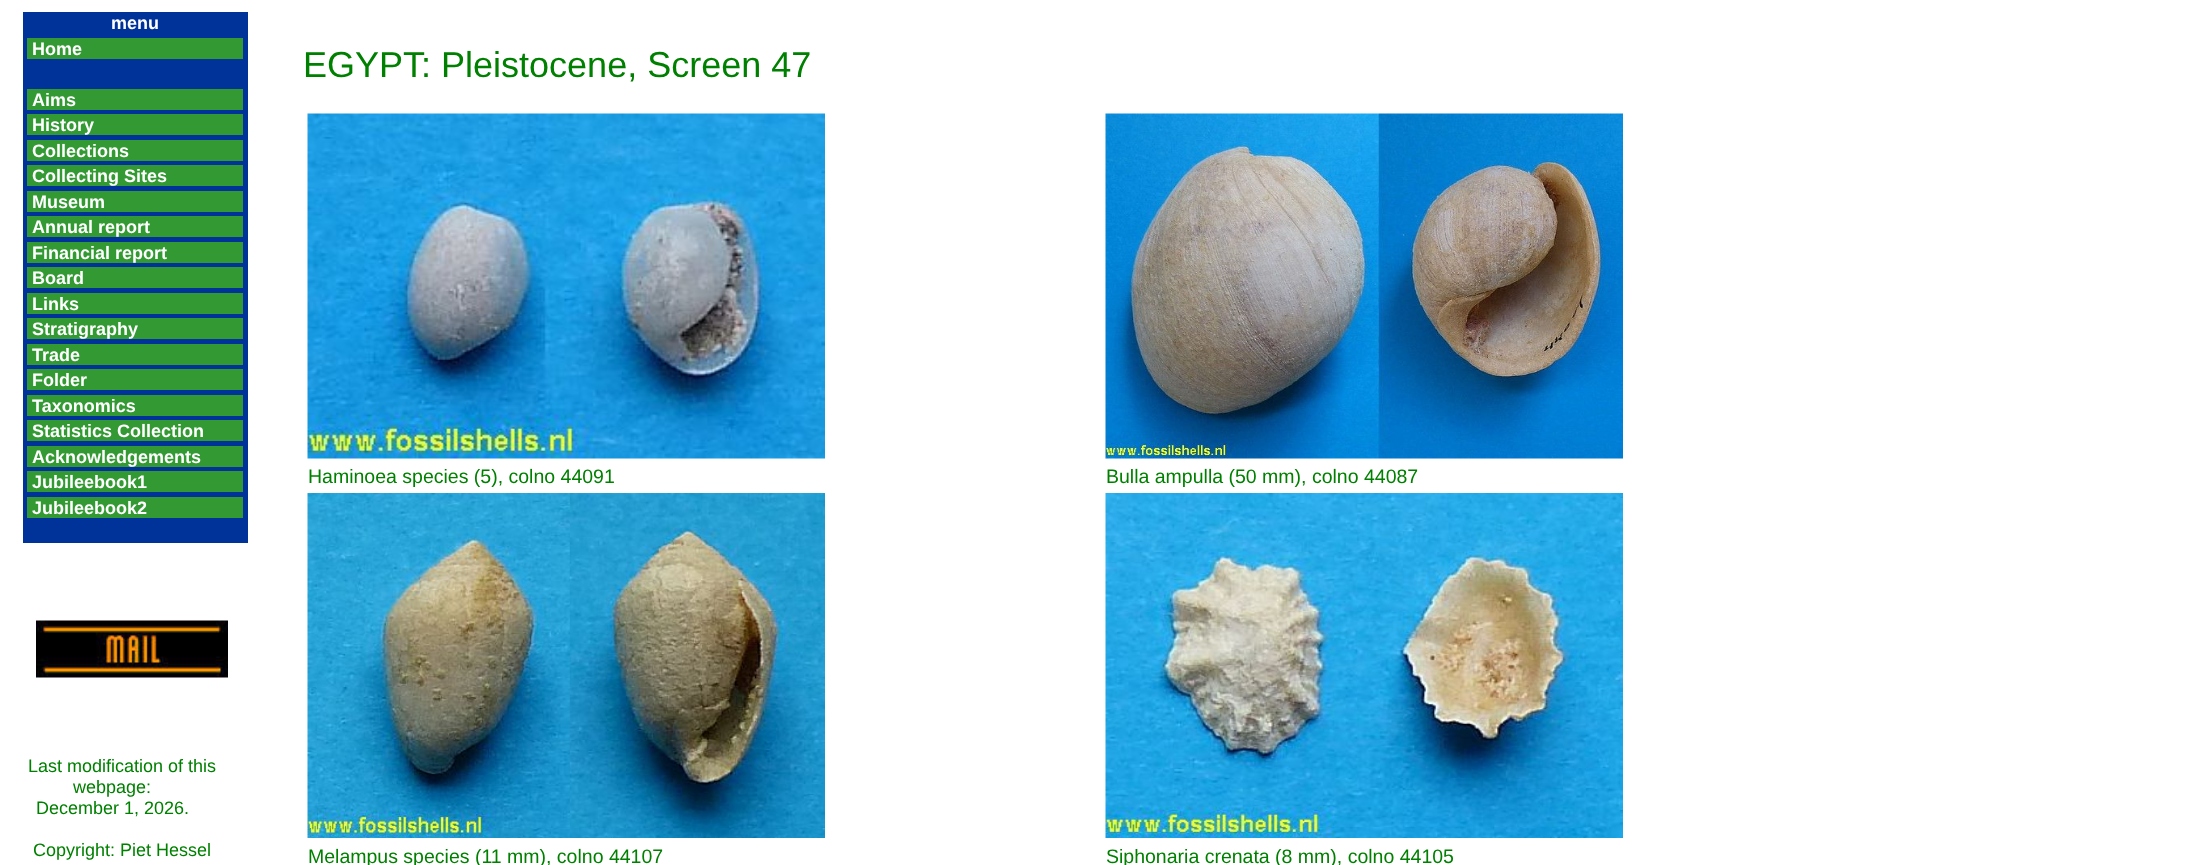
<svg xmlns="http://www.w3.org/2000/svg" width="2209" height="865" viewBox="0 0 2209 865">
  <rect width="100%" height="100%" fill="rgb(255,255,255)"/>
  <rect x="23" y="12" width="225" height="531" fill="rgb(0,51,153)"/>
  <text x="111" y="29" font-family="Liberation Sans" font-size="18" font-weight="bold" fill="rgb(255,255,255)">menu</text>
  <rect x="27" y="38" width="216" height="21" fill="rgb(51,153,51)"/>
  <text x="32" y="55" font-family="Liberation Sans" font-size="18" font-weight="bold" fill="rgb(255,255,255)">Home</text>
  <rect x="27" y="89" width="216" height="21" fill="rgb(51,153,51)"/>
  <text x="32" y="106" font-family="Liberation Sans" font-size="18" font-weight="bold" fill="rgb(255,255,255)">Aims</text>
  <rect x="27" y="114" width="216" height="21" fill="rgb(51,153,51)"/>
  <text x="32" y="131" font-family="Liberation Sans" font-size="18" font-weight="bold" fill="rgb(255,255,255)">History</text>
  <rect x="27" y="140" width="216" height="21" fill="rgb(51,153,51)"/>
  <text x="32" y="157" font-family="Liberation Sans" font-size="18" font-weight="bold" fill="rgb(255,255,255)">Collections</text>
  <rect x="27" y="165" width="216" height="21" fill="rgb(51,153,51)"/>
  <text x="32" y="182" font-family="Liberation Sans" font-size="18" font-weight="bold" fill="rgb(255,255,255)">Collecting Sites</text>
  <rect x="27" y="191" width="216" height="21" fill="rgb(51,153,51)"/>
  <text x="32" y="208" font-family="Liberation Sans" font-size="18" font-weight="bold" fill="rgb(255,255,255)">Museum</text>
  <rect x="27" y="216" width="216" height="21" fill="rgb(51,153,51)"/>
  <text x="32" y="233" font-family="Liberation Sans" font-size="18" font-weight="bold" fill="rgb(255,255,255)">Annual report</text>
  <rect x="27" y="242" width="216" height="21" fill="rgb(51,153,51)"/>
  <text x="32" y="259" font-family="Liberation Sans" font-size="18" font-weight="bold" fill="rgb(255,255,255)">Financial report</text>
  <rect x="27" y="267" width="216" height="21" fill="rgb(51,153,51)"/>
  <text x="32" y="284" font-family="Liberation Sans" font-size="18" font-weight="bold" fill="rgb(255,255,255)">Board</text>
  <rect x="27" y="293" width="216" height="21" fill="rgb(51,153,51)"/>
  <text x="32" y="310" font-family="Liberation Sans" font-size="18" font-weight="bold" fill="rgb(255,255,255)">Links</text>
  <rect x="27" y="318" width="216" height="21" fill="rgb(51,153,51)"/>
  <text x="32" y="335" font-family="Liberation Sans" font-size="18" font-weight="bold" fill="rgb(255,255,255)">Stratigraphy</text>
  <rect x="27" y="344" width="216" height="21" fill="rgb(51,153,51)"/>
  <text x="32" y="361" font-family="Liberation Sans" font-size="18" font-weight="bold" fill="rgb(255,255,255)">Trade</text>
  <rect x="27" y="369" width="216" height="21" fill="rgb(51,153,51)"/>
  <text x="32" y="386" font-family="Liberation Sans" font-size="18" font-weight="bold" fill="rgb(255,255,255)">Folder</text>
  <rect x="27" y="395" width="216" height="21" fill="rgb(51,153,51)"/>
  <text x="32" y="412" font-family="Liberation Sans" font-size="18" font-weight="bold" fill="rgb(255,255,255)">Taxonomics</text>
  <rect x="27" y="420" width="216" height="21" fill="rgb(51,153,51)"/>
  <text x="32" y="437" font-family="Liberation Sans" font-size="18" font-weight="bold" fill="rgb(255,255,255)">Statistics Collection</text>
  <rect x="27" y="446" width="216" height="21" fill="rgb(51,153,51)"/>
  <text x="32" y="463" font-family="Liberation Sans" font-size="18" font-weight="bold" fill="rgb(255,255,255)">Acknowledgements</text>
  <rect x="27" y="471" width="216" height="21" fill="rgb(51,153,51)"/>
  <text x="32" y="488" font-family="Liberation Sans" font-size="18" font-weight="bold" fill="rgb(255,255,255)">Jubileebook1</text>
  <rect x="27" y="497" width="216" height="21" fill="rgb(51,153,51)"/>
  <text x="32" y="514" font-family="Liberation Sans" font-size="18" font-weight="bold" fill="rgb(255,255,255)">Jubileebook2</text>
  <image x="36" y="620" width="192" height="58" href="pic1.png"/>
  <g font-family="Liberation Sans" font-size="18" fill="rgb(0,128,0)">
    <text x="28" y="772">Last modification of this</text>
    <text x="73" y="793">webpage:</text>
    <text x="36" y="814">December 1, 2026.</text>
    <text x="33" y="856">Copyright: Piet Hessel</text>
  </g>
  <text x="303" y="77" font-family="Liberation Sans" font-size="36" fill="rgb(0,128,0)">EGYPT: Pleistocene, Screen 47</text>
  <image x="307" y="113" width="518" height="346" href="pic2.png"/>
  <image x="1105" y="113" width="518" height="346" href="pic3.png"/>
  <g font-family="Liberation Sans" font-size="19.5" fill="rgb(0,128,0)">
    <text x="308" y="483">Haminoea species (5), colno 44091</text>
    <text x="1106" y="483">Bulla ampulla (50 mm), colno 44087</text>
  </g>
  <image x="307" y="493" width="518" height="345" href="pic4.png"/>
  <image x="1105" y="493" width="518" height="345" href="pic5.png"/>
  <g font-family="Liberation Sans" font-size="19.5" fill="rgb(0,128,0)">
    <text x="308" y="863">Melampus species (11 mm), colno 44107</text>
    <text x="1106" y="863">Siphonaria crenata (8 mm), colno 44105</text>
  </g>
</svg>
